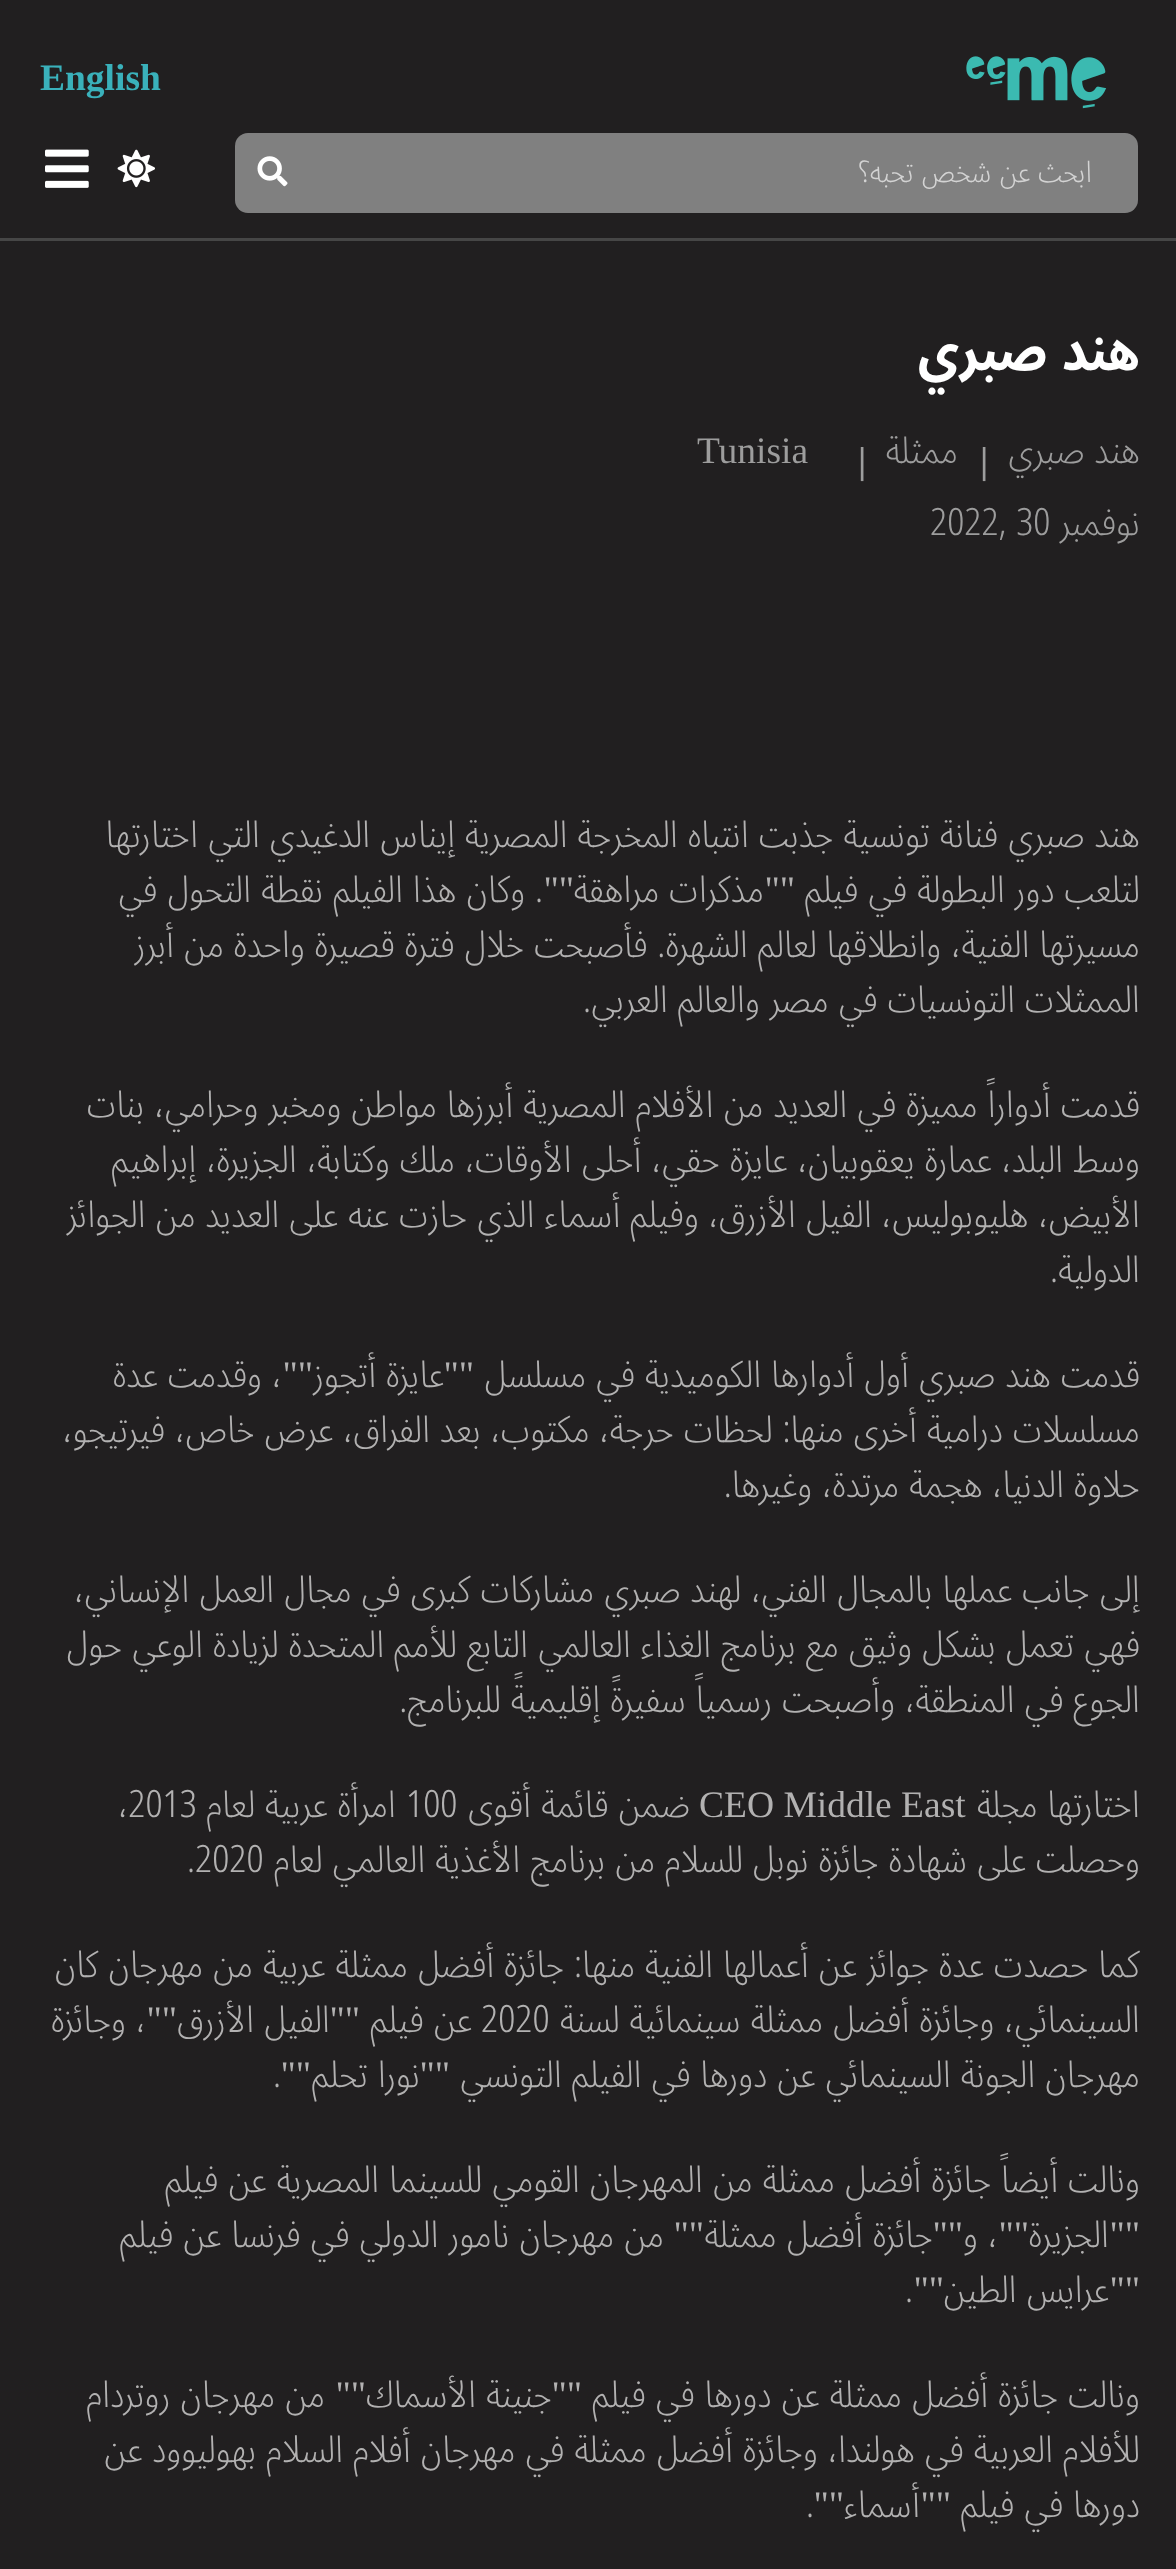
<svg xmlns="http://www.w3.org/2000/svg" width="1176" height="2569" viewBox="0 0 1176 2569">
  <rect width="100%" height="100%" fill="rgb(33,31,32)"/>
  <rect x="0" y="238" width="1176" height="3" fill="rgb(70,70,70)"/>
  <image x="966" y="56" width="141" height="53" href="pic1.png"/>
  <text x="40" y="90" font-family="Liberation Serif" font-size="37.5" font-weight="bold" fill="rgb(58,177,187)">English</text>
  <rect x="235" y="133" width="903" height="80" rx="13" fill="rgb(128,128,128)"/>
  <text x="1092" y="182" font-family="Noto Sans Arabic" font-size="30" font-weight="300" direction="rtl" fill="rgb(211,211,211)">ابحث عن شخص تحبه؟</text>
  <image x="257" y="156" width="31" height="31" href="pic2.png"/>
  <image x="117" y="149" width="38" height="39" href="pic3.png"/>
  <image x="45" y="149" width="44" height="39" href="pic4.png"/>
  <text x="1140" y="370" font-family="Noto Sans Arabic" font-size="55" font-weight="bold" direction="rtl" fill="rgb(255,255,255)">هند صبري</text>
  <text x="1140" y="463" font-family="Noto Sans Arabic" font-size="37.5" font-weight="300" direction="rtl" fill="rgb(157,157,157)">هند صبري</text>
  <text x="980" y="473" font-family="Liberation Serif" font-size="37.5" font-weight="bold" fill="rgb(157,157,157)">|</text>
  <text x="958" y="463" font-family="Noto Sans Arabic" font-size="37.5" font-weight="300" direction="rtl" fill="rgb(157,157,157)">ممثلة</text>
  <text x="858" y="473" font-family="Liberation Serif" font-size="37.5" font-weight="bold" fill="rgb(157,157,157)">|</text>
  <text x="697" y="463" font-family="Liberation Serif" font-size="37.5" fill="rgb(157,157,157)">Tunisia</text>
  <text x="1140" y="535" font-family="Noto Sans Arabic" font-size="37.5" font-weight="300" direction="rtl" fill="rgb(157,157,157)">نوفمبر</text>
  <text x="930" y="535" font-family="Noto Sans Arabic" font-size="37.5" font-weight="300" fill="rgb(157,157,157)">2022, 30</text>
  <g font-family="Noto Sans Arabic" font-size="37.5" font-weight="300" direction="rtl" fill="rgb(178,177,177)">
    <text>
      <tspan x="1140" y="847">هند صبري فنانة تونسية جذبت انتباه المخرجة المصرية إيناس الدغيدي التي اختارتها</tspan>
      <tspan x="1140" y="902">لتلعب دور البطولة في فيلم</tspan>
    </text>
  </g>
  <text x="795" y="902" font-family="Liberation Serif" font-size="37.5" direction="rtl" fill="rgb(178,177,177)">""</text>
  <text x="764" y="902" font-family="Noto Sans Arabic" font-size="37.5" font-weight="300" direction="rtl" fill="rgb(178,177,177)">مذكرات مراهقة</text>
  <text x="574" y="902" font-family="Liberation Serif" font-size="37.5" direction="rtl" fill="rgb(178,177,177)">""</text>
  <g font-family="Noto Sans Arabic" font-size="37.5" font-weight="300" direction="rtl" fill="rgb(178,177,177)">
    <text x="543" y="902">. وكان هذا الفيلم نقطة التحول في</text>
    <text>
      <tspan x="1140" y="957">مسيرتها الفنية، وانطلاقها لعالم الشهرة. فأصبحت خلال فترة قصيرة واحدة من أبرز</tspan>
      <tspan x="1140" y="1012">الممثلات التونسيات في مصر والعالم العربي.</tspan>
    </text>
    <text>
      <tspan x="1140" y="1117">قدمت أدواراً مميزة في العديد من الأفلام المصرية أبرزها مواطن ومخبر وحرامي، بنات</tspan>
      <tspan x="1140" y="1172">وسط البلد، عمارة يعقوبيان، عايزة حقي، أحلى الأوقات، ملك وكتابة، الجزيرة، إبراهيم</tspan>
      <tspan x="1140" y="1227">الأبيض، هليوبوليس، الفيل الأزرق، وفيلم أسماء الذي حازت عنه على العديد من الجوائز</tspan>
      <tspan x="1140" y="1282">الدولية.</tspan>
    </text>
    <text x="1140" y="1387">قدمت هند صبري أول أدوارها الكوميدية في مسلسل</text>
  </g>
  <text x="474" y="1387" font-family="Liberation Serif" font-size="37.5" direction="rtl" fill="rgb(178,177,177)">""</text>
  <text x="444" y="1387" font-family="Noto Sans Arabic" font-size="37.5" font-weight="300" direction="rtl" fill="rgb(178,177,177)">عايزة أتجوز</text>
  <text x="313" y="1387" font-family="Liberation Serif" font-size="37.5" direction="rtl" fill="rgb(178,177,177)">""</text>
  <g font-family="Noto Sans Arabic" font-size="37.5" font-weight="300" direction="rtl" fill="rgb(178,177,177)">
    <text x="282" y="1387">، وقدمت عدة</text>
    <text>
      <tspan x="1140" y="1442">مسلسلات درامية أخرى منها: لحظات حرجة، مكتوب، بعد الفراق، عرض خاص، فيرتيجو،</tspan>
      <tspan x="1140" y="1497">حلاوة الدنيا، هجمة مرتدة، وغيرها.</tspan>
    </text>
    <text>
      <tspan x="1140" y="1602">إلى جانب عملها بالمجال الفني، لهند صبري مشاركات كبرى في مجال العمل الإنساني،</tspan>
      <tspan x="1140" y="1657">فهي تعمل بشكل وثيق مع برنامج الغذاء العالمي التابع للأمم المتحدة لزيادة الوعي حول</tspan>
      <tspan x="1140" y="1712">الجوع في المنطقة، وأصبحت رسمياً سفيرةً إقليميةً للبرنامج.</tspan>
    </text>
    <text x="1140" y="1817">اختارتها مجلة</text>
  </g>
  <text x="699" y="1817" font-family="Liberation Serif" font-size="37.5" fill="rgb(178,177,177)">CEO Middle East</text>
  <text x="690" y="1817" font-family="Noto Sans Arabic" font-size="37.5" font-weight="300" direction="rtl" fill="rgb(178,177,177)">ضمن قائمة أقوى</text>
  <text x="406" y="1817" font-family="Noto Sans Arabic" font-size="37.5" font-weight="300" fill="rgb(178,177,177)">100</text>
  <text x="396" y="1817" font-family="Noto Sans Arabic" font-size="37.5" font-weight="300" direction="rtl" fill="rgb(178,177,177)">امرأة عربية لعام</text>
  <text x="118" y="1817" font-family="Noto Sans Arabic" font-size="37.5" font-weight="300" fill="rgb(178,177,177)">،2013</text>
  <text x="1140" y="1872" font-family="Noto Sans Arabic" font-size="37.5" font-weight="300" direction="rtl" fill="rgb(178,177,177)">وحصلت على شهادة جائزة نوبل للسلام من برنامج الأغذية العالمي لعام</text>
  <text x="187" y="1872" font-family="Noto Sans Arabic" font-size="37.5" font-weight="300" fill="rgb(178,177,177)">.2020</text>
  <g font-family="Noto Sans Arabic" font-size="37.5" font-weight="300" direction="rtl" fill="rgb(178,177,177)">
    <text>
      <tspan x="1140" y="1977">كما حصدت عدة جوائز عن أعمالها الفنية منها: جائزة أفضل ممثلة عربية من مهرجان كان</tspan>
      <tspan x="1140" y="2032">السينمائي، وجائزة أفضل ممثلة سينمائية لسنة</tspan>
    </text>
  </g>
  <text x="481" y="2032" font-family="Noto Sans Arabic" font-size="37.5" font-weight="300" fill="rgb(178,177,177)">2020</text>
  <text x="472" y="2032" font-family="Noto Sans Arabic" font-size="37.5" font-weight="300" direction="rtl" fill="rgb(178,177,177)">عن فيلم</text>
  <text x="360" y="2032" font-family="Liberation Serif" font-size="37.5" direction="rtl" fill="rgb(178,177,177)">""</text>
  <text x="330" y="2032" font-family="Noto Sans Arabic" font-size="37.5" font-weight="300" direction="rtl" fill="rgb(178,177,177)">الفيل الأزرق</text>
  <text x="177" y="2032" font-family="Liberation Serif" font-size="37.5" direction="rtl" fill="rgb(178,177,177)">""</text>
  <g font-family="Noto Sans Arabic" font-size="37.5" font-weight="300" direction="rtl" fill="rgb(178,177,177)">
    <text x="146" y="2032">، وجائزة</text>
    <text x="1140" y="2087">مهرجان الجونة السينمائي عن دورها في الفيلم التونسي</text>
  </g>
  <text x="450" y="2087" font-family="Liberation Serif" font-size="37.5" direction="rtl" fill="rgb(178,177,177)">""</text>
  <text x="420" y="2087" font-family="Noto Sans Arabic" font-size="37.5" font-weight="300" direction="rtl" fill="rgb(178,177,177)">نورا تحلم</text>
  <text x="311" y="2087" font-family="Liberation Serif" font-size="37.5" direction="rtl" fill="rgb(178,177,177)">""</text>
  <g font-family="Noto Sans Arabic" font-size="37.5" font-weight="300" direction="rtl" fill="rgb(178,177,177)">
    <text x="281" y="2087">.</text>
    <text x="1140" y="2192">ونالت أيضاً جائزة أفضل ممثلة من المهرجان القومي للسينما المصرية عن فيلم</text>
  </g>
  <text x="1140" y="2247" font-family="Liberation Serif" font-size="37.5" direction="rtl" fill="rgb(178,177,177)">""</text>
  <text x="1109" y="2247" font-family="Noto Sans Arabic" font-size="37.5" font-weight="300" direction="rtl" fill="rgb(178,177,177)">الجزيرة</text>
  <g font-family="Liberation Serif" font-size="37.5" direction="rtl" fill="rgb(178,177,177)">
    <text x="1029" y="2247">""</text>
    <text x="963" y="2247">""</text>
  </g>
  <text x="933" y="2247" font-family="Noto Sans Arabic" font-size="37.5" font-weight="300" direction="rtl" fill="rgb(178,177,177)">جائزة أفضل ممثلة</text>
  <text x="704" y="2247" font-family="Liberation Serif" font-size="37.5" direction="rtl" fill="rgb(178,177,177)">""</text>
  <g font-family="Noto Sans Arabic" font-size="37.5" font-weight="300" direction="rtl" fill="rgb(178,177,177)">
    <text x="664" y="2247">من مهرجان نامور الدولي في فرنسا عن فيلم</text>
    <text x="998" y="2247">، و</text>
  </g>
  <text x="1140" y="2302" font-family="Liberation Serif" font-size="37.5" direction="rtl" fill="rgb(178,177,177)">""</text>
  <text x="1109" y="2302" font-family="Noto Sans Arabic" font-size="37.5" font-weight="300" direction="rtl" fill="rgb(178,177,177)">عرايس الطين</text>
  <text x="944" y="2302" font-family="Liberation Serif" font-size="37.5" direction="rtl" fill="rgb(178,177,177)">""</text>
  <g font-family="Noto Sans Arabic" font-size="37.5" font-weight="300" direction="rtl" fill="rgb(178,177,177)">
    <text x="913" y="2302">.</text>
    <text x="1140" y="2407">ونالت جائزة أفضل ممثلة عن دورها في فيلم</text>
  </g>
  <text x="582" y="2407" font-family="Liberation Serif" font-size="37.5" direction="rtl" fill="rgb(178,177,177)">""</text>
  <text x="552" y="2407" font-family="Noto Sans Arabic" font-size="37.5" font-weight="300" direction="rtl" fill="rgb(178,177,177)">جنينة الأسماك</text>
  <text x="366" y="2407" font-family="Liberation Serif" font-size="37.5" direction="rtl" fill="rgb(178,177,177)">""</text>
  <g font-family="Noto Sans Arabic" font-size="37.5" font-weight="300" direction="rtl" fill="rgb(178,177,177)">
    <text x="325" y="2407">من مهرجان روتردام</text>
    <text>
      <tspan x="1140" y="2462">للأفلام العربية في هولندا، وجائزة أفضل ممثلة في مهرجان أفلام السلام بهوليوود عن</tspan>
      <tspan x="1140" y="2517">دورها في فيلم</tspan>
    </text>
  </g>
  <text x="951" y="2517" font-family="Liberation Serif" font-size="37.5" direction="rtl" fill="rgb(178,177,177)">""</text>
  <text x="920" y="2517" font-family="Noto Sans Arabic" font-size="37.5" font-weight="300" direction="rtl" fill="rgb(178,177,177)">أسماء</text>
  <text x="844" y="2517" font-family="Liberation Serif" font-size="37.5" direction="rtl" fill="rgb(178,177,177)">""</text>
  <text x="814" y="2517" font-family="Noto Sans Arabic" font-size="37.5" font-weight="300" direction="rtl" fill="rgb(178,177,177)">.</text>
</svg>
